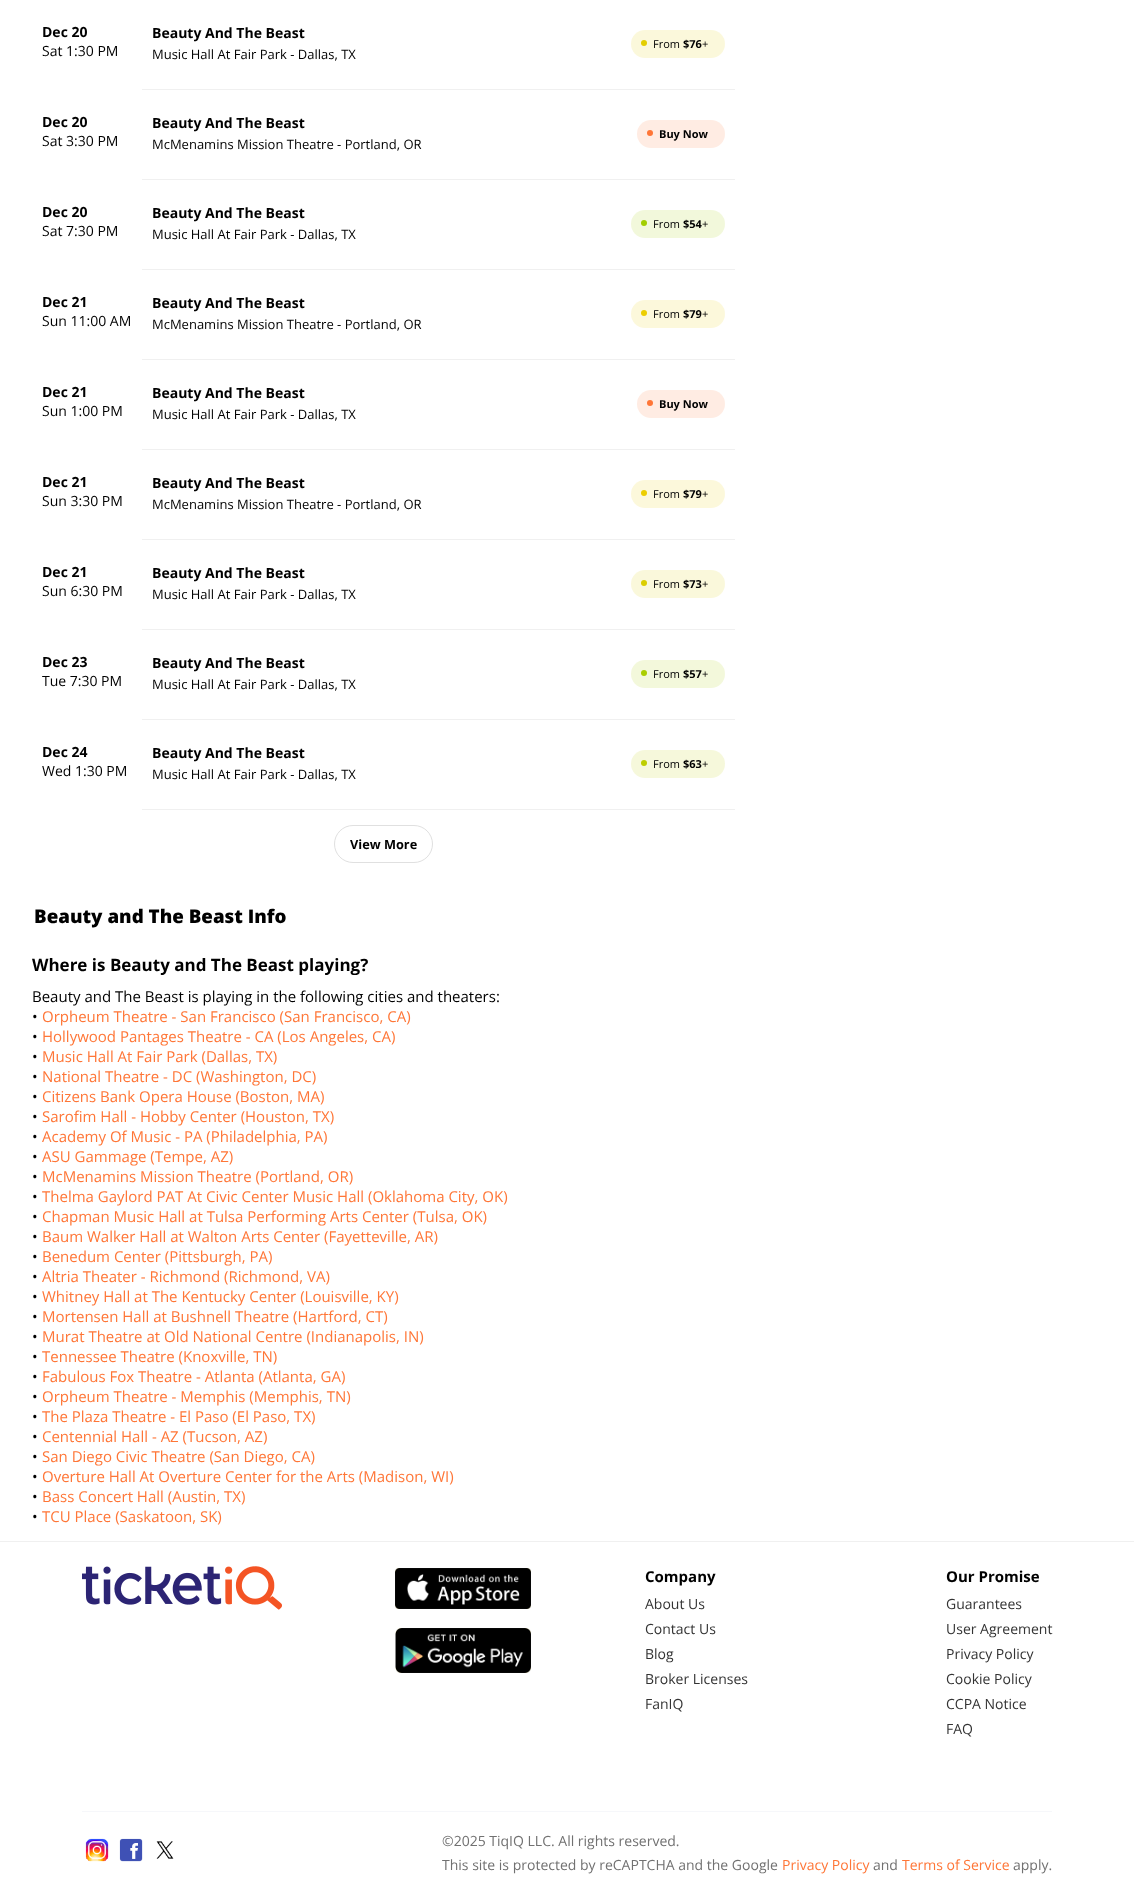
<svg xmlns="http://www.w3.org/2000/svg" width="1134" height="1894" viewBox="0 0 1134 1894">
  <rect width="100%" height="100%" fill="rgb(255,255,255)"/>
  <text x="42" y="37" font-family="Open Sans" font-size="14" font-weight="bold" fill="rgb(0,0,0)">Dec 20</text>
  <text x="42" y="56" font-family="Open Sans" font-size="14" fill="rgb(0,0,0)">Sat 1:30 PM</text>
  <rect x="142" y="89" width="593" height="1" fill="rgb(240,240,240)"/>
  <text x="152" y="38" font-family="Open Sans" font-size="14" font-weight="bold" fill="rgb(0,0,0)">Beauty And The Beast</text>
  <circle cx="644" cy="43" r="3" fill="rgb(228,206,0)"/>
  <rect x="631" y="30" width="94" height="28" rx="14" fill="rgba(228,206,0,0.14)"/>
  <text x="653" y="48" font-family="Open Sans" font-size="11" fill="rgb(0,0,0)">From</text>
  <text x="683" y="48" font-family="Open Sans" font-size="11" font-weight="bold" fill="rgb(0,0,0)">$76</text>
  <text x="702" y="48" font-family="Open Sans" font-size="11" fill="rgb(0,0,0)">+</text>
  <text x="152" y="59" font-family="Open Sans" font-size="13" fill="rgb(0,0,0)">Music Hall At Fair Park - Dallas, TX</text>
  <text x="42" y="127" font-family="Open Sans" font-size="14" font-weight="bold" fill="rgb(0,0,0)">Dec 20</text>
  <text x="42" y="146" font-family="Open Sans" font-size="14" fill="rgb(0,0,0)">Sat 3:30 PM</text>
  <rect x="142" y="179" width="593" height="1" fill="rgb(240,240,240)"/>
  <text x="152" y="128" font-family="Open Sans" font-size="14" font-weight="bold" fill="rgb(0,0,0)">Beauty And The Beast</text>
  <circle cx="650" cy="133" r="3" fill="rgb(255,118,55)"/>
  <rect x="637" y="120" width="88" height="28" rx="14" fill="rgba(255,118,55,0.14)"/>
  <text x="659" y="138" font-family="Open Sans" font-size="11" font-weight="bold" fill="rgb(0,0,0)">Buy Now</text>
  <text x="152" y="149" font-family="Open Sans" font-size="13" fill="rgb(0,0,0)">McMenamins Mission Theatre - Portland, OR</text>
  <text x="42" y="217" font-family="Open Sans" font-size="14" font-weight="bold" fill="rgb(0,0,0)">Dec 20</text>
  <text x="42" y="236" font-family="Open Sans" font-size="14" fill="rgb(0,0,0)">Sat 7:30 PM</text>
  <rect x="142" y="269" width="593" height="1" fill="rgb(240,240,240)"/>
  <text x="152" y="218" font-family="Open Sans" font-size="14" font-weight="bold" fill="rgb(0,0,0)">Beauty And The Beast</text>
  <circle cx="644" cy="223" r="3" fill="rgb(162,206,0)"/>
  <rect x="631" y="210" width="94" height="28" rx="14" fill="rgba(162,206,0,0.14)"/>
  <text x="653" y="228" font-family="Open Sans" font-size="11" fill="rgb(0,0,0)">From</text>
  <text x="683" y="228" font-family="Open Sans" font-size="11" font-weight="bold" fill="rgb(0,0,0)">$54</text>
  <text x="702" y="228" font-family="Open Sans" font-size="11" fill="rgb(0,0,0)">+</text>
  <text x="152" y="239" font-family="Open Sans" font-size="13" fill="rgb(0,0,0)">Music Hall At Fair Park - Dallas, TX</text>
  <text x="42" y="307" font-family="Open Sans" font-size="14" font-weight="bold" fill="rgb(0,0,0)">Dec 21</text>
  <text x="42" y="326" font-family="Open Sans" font-size="14" fill="rgb(0,0,0)">Sun 11:00 AM</text>
  <rect x="142" y="359" width="593" height="1" fill="rgb(240,240,240)"/>
  <text x="152" y="308" font-family="Open Sans" font-size="14" font-weight="bold" fill="rgb(0,0,0)">Beauty And The Beast</text>
  <circle cx="644" cy="313" r="3" fill="rgb(237,206,0)"/>
  <rect x="631" y="300" width="94" height="28" rx="14" fill="rgba(237,206,0,0.14)"/>
  <text x="653" y="318" font-family="Open Sans" font-size="11" fill="rgb(0,0,0)">From</text>
  <text x="683" y="318" font-family="Open Sans" font-size="11" font-weight="bold" fill="rgb(0,0,0)">$79</text>
  <text x="702" y="318" font-family="Open Sans" font-size="11" fill="rgb(0,0,0)">+</text>
  <text x="152" y="329" font-family="Open Sans" font-size="13" fill="rgb(0,0,0)">McMenamins Mission Theatre - Portland, OR</text>
  <text x="42" y="397" font-family="Open Sans" font-size="14" font-weight="bold" fill="rgb(0,0,0)">Dec 21</text>
  <text x="42" y="416" font-family="Open Sans" font-size="14" fill="rgb(0,0,0)">Sun 1:00 PM</text>
  <rect x="142" y="449" width="593" height="1" fill="rgb(240,240,240)"/>
  <text x="152" y="398" font-family="Open Sans" font-size="14" font-weight="bold" fill="rgb(0,0,0)">Beauty And The Beast</text>
  <circle cx="650" cy="403" r="3" fill="rgb(255,118,55)"/>
  <rect x="637" y="390" width="88" height="28" rx="14" fill="rgba(255,118,55,0.14)"/>
  <text x="659" y="408" font-family="Open Sans" font-size="11" font-weight="bold" fill="rgb(0,0,0)">Buy Now</text>
  <text x="152" y="419" font-family="Open Sans" font-size="13" fill="rgb(0,0,0)">Music Hall At Fair Park - Dallas, TX</text>
  <text x="42" y="487" font-family="Open Sans" font-size="14" font-weight="bold" fill="rgb(0,0,0)">Dec 21</text>
  <text x="42" y="506" font-family="Open Sans" font-size="14" fill="rgb(0,0,0)">Sun 3:30 PM</text>
  <rect x="142" y="539" width="593" height="1" fill="rgb(240,240,240)"/>
  <text x="152" y="488" font-family="Open Sans" font-size="14" font-weight="bold" fill="rgb(0,0,0)">Beauty And The Beast</text>
  <circle cx="644" cy="493" r="3" fill="rgb(237,206,0)"/>
  <rect x="631" y="480" width="94" height="28" rx="14" fill="rgba(237,206,0,0.14)"/>
  <text x="653" y="498" font-family="Open Sans" font-size="11" fill="rgb(0,0,0)">From</text>
  <text x="683" y="498" font-family="Open Sans" font-size="11" font-weight="bold" fill="rgb(0,0,0)">$79</text>
  <text x="702" y="498" font-family="Open Sans" font-size="11" fill="rgb(0,0,0)">+</text>
  <text x="152" y="509" font-family="Open Sans" font-size="13" fill="rgb(0,0,0)">McMenamins Mission Theatre - Portland, OR</text>
  <text x="42" y="577" font-family="Open Sans" font-size="14" font-weight="bold" fill="rgb(0,0,0)">Dec 21</text>
  <text x="42" y="596" font-family="Open Sans" font-size="14" fill="rgb(0,0,0)">Sun 6:30 PM</text>
  <rect x="142" y="629" width="593" height="1" fill="rgb(240,240,240)"/>
  <text x="152" y="578" font-family="Open Sans" font-size="14" font-weight="bold" fill="rgb(0,0,0)">Beauty And The Beast</text>
  <circle cx="644" cy="583" r="3" fill="rgb(219,206,0)"/>
  <rect x="631" y="570" width="94" height="28" rx="14" fill="rgba(219,206,0,0.14)"/>
  <text x="653" y="588" font-family="Open Sans" font-size="11" fill="rgb(0,0,0)">From</text>
  <text x="683" y="588" font-family="Open Sans" font-size="11" font-weight="bold" fill="rgb(0,0,0)">$73</text>
  <text x="702" y="588" font-family="Open Sans" font-size="11" fill="rgb(0,0,0)">+</text>
  <text x="152" y="599" font-family="Open Sans" font-size="13" fill="rgb(0,0,0)">Music Hall At Fair Park - Dallas, TX</text>
  <text x="42" y="667" font-family="Open Sans" font-size="14" font-weight="bold" fill="rgb(0,0,0)">Dec 23</text>
  <text x="42" y="686" font-family="Open Sans" font-size="14" fill="rgb(0,0,0)">Tue 7:30 PM</text>
  <rect x="142" y="719" width="593" height="1" fill="rgb(240,240,240)"/>
  <text x="152" y="668" font-family="Open Sans" font-size="14" font-weight="bold" fill="rgb(0,0,0)">Beauty And The Beast</text>
  <circle cx="644" cy="673" r="3" fill="rgb(171,206,0)"/>
  <rect x="631" y="660" width="94" height="28" rx="14" fill="rgba(171,206,0,0.14)"/>
  <text x="653" y="678" font-family="Open Sans" font-size="11" fill="rgb(0,0,0)">From</text>
  <text x="683" y="678" font-family="Open Sans" font-size="11" font-weight="bold" fill="rgb(0,0,0)">$57</text>
  <text x="702" y="678" font-family="Open Sans" font-size="11" fill="rgb(0,0,0)">+</text>
  <text x="152" y="689" font-family="Open Sans" font-size="13" fill="rgb(0,0,0)">Music Hall At Fair Park - Dallas, TX</text>
  <text x="42" y="757" font-family="Open Sans" font-size="14" font-weight="bold" fill="rgb(0,0,0)">Dec 24</text>
  <text x="42" y="776" font-family="Open Sans" font-size="14" fill="rgb(0,0,0)">Wed 1:30 PM</text>
  <rect x="142" y="809" width="593" height="1" fill="rgb(240,240,240)"/>
  <text x="152" y="758" font-family="Open Sans" font-size="14" font-weight="bold" fill="rgb(0,0,0)">Beauty And The Beast</text>
  <circle cx="644" cy="763" r="3" fill="rgb(189,206,0)"/>
  <rect x="631" y="750" width="94" height="28" rx="14" fill="rgba(189,206,0,0.14)"/>
  <text x="653" y="768" font-family="Open Sans" font-size="11" fill="rgb(0,0,0)">From</text>
  <text x="683" y="768" font-family="Open Sans" font-size="11" font-weight="bold" fill="rgb(0,0,0)">$63</text>
  <text x="702" y="768" font-family="Open Sans" font-size="11" fill="rgb(0,0,0)">+</text>
  <text x="152" y="779" font-family="Open Sans" font-size="13" fill="rgb(0,0,0)">Music Hall At Fair Park - Dallas, TX</text>
  <rect x="334.5" y="825.5" width="98" height="37" rx="18.5" fill="none" stroke="rgb(224,224,224)"/>
  <text x="350" y="849" font-family="Open Sans" font-size="12.75" font-weight="bold" fill="rgb(0,0,0)">View More</text>
  <text x="34" y="923" font-family="Open Sans" font-size="18.75" font-weight="800" fill="rgb(0,0,0)">Beauty and The Beast Info</text>
  <text x="32" y="971" font-family="Open Sans" font-size="17" font-weight="bold" fill="rgb(0,0,0)">Where is Beauty and The Beast playing?</text>
  <g font-family="Open Sans" font-size="15" fill="rgb(0,0,0)">
    <text>
      <tspan x="32" y="1002">Beauty and The Beast is playing in the following cities and theaters:</tspan>
      <tspan x="32" y="1022">•</tspan>
    </text>
  </g>
  <text x="42" y="1022" font-family="Open Sans" font-size="15" fill="rgb(255,118,55)">Orpheum Theatre - San Francisco (San Francisco, CA)</text>
  <text x="32" y="1042" font-family="Open Sans" font-size="15" fill="rgb(0,0,0)">•</text>
  <text x="42" y="1042" font-family="Open Sans" font-size="15" fill="rgb(255,118,55)">Hollywood Pantages Theatre - CA (Los Angeles, CA)</text>
  <text x="32" y="1062" font-family="Open Sans" font-size="15" fill="rgb(0,0,0)">•</text>
  <text x="42" y="1062" font-family="Open Sans" font-size="15" fill="rgb(255,118,55)">Music Hall At Fair Park (Dallas, TX)</text>
  <text x="32" y="1082" font-family="Open Sans" font-size="15" fill="rgb(0,0,0)">•</text>
  <text x="42" y="1082" font-family="Open Sans" font-size="15" fill="rgb(255,118,55)">National Theatre - DC (Washington, DC)</text>
  <text x="32" y="1102" font-family="Open Sans" font-size="15" fill="rgb(0,0,0)">•</text>
  <text x="42" y="1102" font-family="Open Sans" font-size="15" fill="rgb(255,118,55)">Citizens Bank Opera House (Boston, MA)</text>
  <text x="32" y="1122" font-family="Open Sans" font-size="15" fill="rgb(0,0,0)">•</text>
  <text x="42" y="1122" font-family="Open Sans" font-size="15" fill="rgb(255,118,55)">Sarofim Hall - Hobby Center (Houston, TX)</text>
  <text x="32" y="1142" font-family="Open Sans" font-size="15" fill="rgb(0,0,0)">•</text>
  <text x="42" y="1142" font-family="Open Sans" font-size="15" fill="rgb(255,118,55)">Academy Of Music - PA (Philadelphia, PA)</text>
  <text x="32" y="1162" font-family="Open Sans" font-size="15" fill="rgb(0,0,0)">•</text>
  <text x="42" y="1162" font-family="Open Sans" font-size="15" fill="rgb(255,118,55)">ASU Gammage (Tempe, AZ)</text>
  <text x="32" y="1182" font-family="Open Sans" font-size="15" fill="rgb(0,0,0)">•</text>
  <text x="42" y="1182" font-family="Open Sans" font-size="15" fill="rgb(255,118,55)">McMenamins Mission Theatre (Portland, OR)</text>
  <text x="32" y="1202" font-family="Open Sans" font-size="15" fill="rgb(0,0,0)">•</text>
  <text x="42" y="1202" font-family="Open Sans" font-size="15" fill="rgb(255,118,55)">Thelma Gaylord PAT At Civic Center Music Hall (Oklahoma City, OK)</text>
  <text x="32" y="1222" font-family="Open Sans" font-size="15" fill="rgb(0,0,0)">•</text>
  <text x="42" y="1222" font-family="Open Sans" font-size="15" fill="rgb(255,118,55)">Chapman Music Hall at Tulsa Performing Arts Center (Tulsa, OK)</text>
  <text x="32" y="1242" font-family="Open Sans" font-size="15" fill="rgb(0,0,0)">•</text>
  <text x="42" y="1242" font-family="Open Sans" font-size="15" fill="rgb(255,118,55)">Baum Walker Hall at Walton Arts Center (Fayetteville, AR)</text>
  <text x="32" y="1262" font-family="Open Sans" font-size="15" fill="rgb(0,0,0)">•</text>
  <text x="42" y="1262" font-family="Open Sans" font-size="15" fill="rgb(255,118,55)">Benedum Center (Pittsburgh, PA)</text>
  <text x="32" y="1282" font-family="Open Sans" font-size="15" fill="rgb(0,0,0)">•</text>
  <text x="42" y="1282" font-family="Open Sans" font-size="15" fill="rgb(255,118,55)">Altria Theater - Richmond (Richmond, VA)</text>
  <text x="32" y="1302" font-family="Open Sans" font-size="15" fill="rgb(0,0,0)">•</text>
  <text x="42" y="1302" font-family="Open Sans" font-size="15" fill="rgb(255,118,55)">Whitney Hall at The Kentucky Center (Louisville, KY)</text>
  <text x="32" y="1322" font-family="Open Sans" font-size="15" fill="rgb(0,0,0)">•</text>
  <text x="42" y="1322" font-family="Open Sans" font-size="15" fill="rgb(255,118,55)">Mortensen Hall at Bushnell Theatre (Hartford, CT)</text>
  <text x="32" y="1342" font-family="Open Sans" font-size="15" fill="rgb(0,0,0)">•</text>
  <text x="42" y="1342" font-family="Open Sans" font-size="15" fill="rgb(255,118,55)">Murat Theatre at Old National Centre (Indianapolis, IN)</text>
  <text x="32" y="1362" font-family="Open Sans" font-size="15" fill="rgb(0,0,0)">•</text>
  <text x="42" y="1362" font-family="Open Sans" font-size="15" fill="rgb(255,118,55)">Tennessee Theatre (Knoxville, TN)</text>
  <text x="32" y="1382" font-family="Open Sans" font-size="15" fill="rgb(0,0,0)">•</text>
  <text x="42" y="1382" font-family="Open Sans" font-size="15" fill="rgb(255,118,55)">Fabulous Fox Theatre - Atlanta (Atlanta, GA)</text>
  <text x="32" y="1402" font-family="Open Sans" font-size="15" fill="rgb(0,0,0)">•</text>
  <text x="42" y="1402" font-family="Open Sans" font-size="15" fill="rgb(255,118,55)">Orpheum Theatre - Memphis (Memphis, TN)</text>
  <text x="32" y="1422" font-family="Open Sans" font-size="15" fill="rgb(0,0,0)">•</text>
  <text x="42" y="1422" font-family="Open Sans" font-size="15" fill="rgb(255,118,55)">The Plaza Theatre - El Paso (El Paso, TX)</text>
  <text x="32" y="1442" font-family="Open Sans" font-size="15" fill="rgb(0,0,0)">•</text>
  <text x="42" y="1442" font-family="Open Sans" font-size="15" fill="rgb(255,118,55)">Centennial Hall - AZ (Tucson, AZ)</text>
  <text x="32" y="1462" font-family="Open Sans" font-size="15" fill="rgb(0,0,0)">•</text>
  <text x="42" y="1462" font-family="Open Sans" font-size="15" fill="rgb(255,118,55)">San Diego Civic Theatre (San Diego, CA)</text>
  <text x="32" y="1482" font-family="Open Sans" font-size="15" fill="rgb(0,0,0)">•</text>
  <text x="42" y="1482" font-family="Open Sans" font-size="15" fill="rgb(255,118,55)">Overture Hall At Overture Center for the Arts (Madison, WI)</text>
  <text x="32" y="1502" font-family="Open Sans" font-size="15" fill="rgb(0,0,0)">•</text>
  <text x="42" y="1502" font-family="Open Sans" font-size="15" fill="rgb(255,118,55)">Bass Concert Hall (Austin, TX)</text>
  <text x="32" y="1522" font-family="Open Sans" font-size="15" fill="rgb(0,0,0)">•</text>
  <text x="42" y="1522" font-family="Open Sans" font-size="15" fill="rgb(255,118,55)">TCU Place (Saskatoon, SK)</text>
  <rect x="0" y="1541" width="1134" height="1" fill="rgb(240,240,240)"/>
  <image x="82" y="1566" width="200" height="44" href="pic1.png"/>
  <image x="395" y="1568" width="136" height="41" href="pic2.png"/>
  <image x="395" y="1628" width="136" height="45" href="pic3.png"/>
  <text x="645" y="1582" font-family="Open Sans" font-size="15" font-weight="bold" fill="rgb(0,0,0)">Company</text>
  <g font-family="Open Sans" font-size="14" fill="rgb(51,51,51)">
    <text>
      <tspan x="645" y="1609">About Us</tspan>
      <tspan x="645" y="1634">Contact Us</tspan>
      <tspan x="645" y="1659">Blog</tspan>
      <tspan x="645" y="1684">Broker Licenses</tspan>
      <tspan x="645" y="1709">FanIQ</tspan>
    </text>
  </g>
  <text x="946" y="1582" font-family="Open Sans" font-size="15" font-weight="bold" fill="rgb(0,0,0)">Our Promise</text>
  <g font-family="Open Sans" font-size="14" fill="rgb(51,51,51)">
    <text>
      <tspan x="946" y="1609">Guarantees</tspan>
      <tspan x="946" y="1634">User Agreement</tspan>
      <tspan x="946" y="1659">Privacy Policy</tspan>
      <tspan x="946" y="1684">Cookie Policy</tspan>
      <tspan x="946" y="1709">CCPA Notice</tspan>
      <tspan x="946" y="1734">FAQ</tspan>
    </text>
  </g>
  <rect x="82" y="1811" width="970" height="1" fill="rgb(246,247,250)"/>
  <image x="85" y="1838" width="24" height="24" href="pic4.png"/>
  <image x="119" y="1838" width="24" height="24" href="pic5.png"/>
  <image x="156" y="1841" width="18" height="18" href="pic6.png"/>
  <g font-family="Open Sans" font-size="14" fill="rgb(113,113,113)">
    <text>
      <tspan x="442" y="1846">©2025 TiqIQ LLC. All rights reserved.</tspan>
      <tspan x="442" y="1870">This site is protected by reCAPTCHA and the Google</tspan>
    </text>
  </g>
  <text x="782" y="1870" font-family="Open Sans" font-size="14" fill="rgb(255,118,55)">Privacy Policy</text>
  <text x="873" y="1870" font-family="Open Sans" font-size="14" fill="rgb(113,113,113)">and</text>
  <text x="902" y="1870" font-family="Open Sans" font-size="14" fill="rgb(255,118,55)">Terms of Service</text>
  <text x="1013" y="1870" font-family="Open Sans" font-size="14" fill="rgb(113,113,113)">apply.</text>
</svg>
